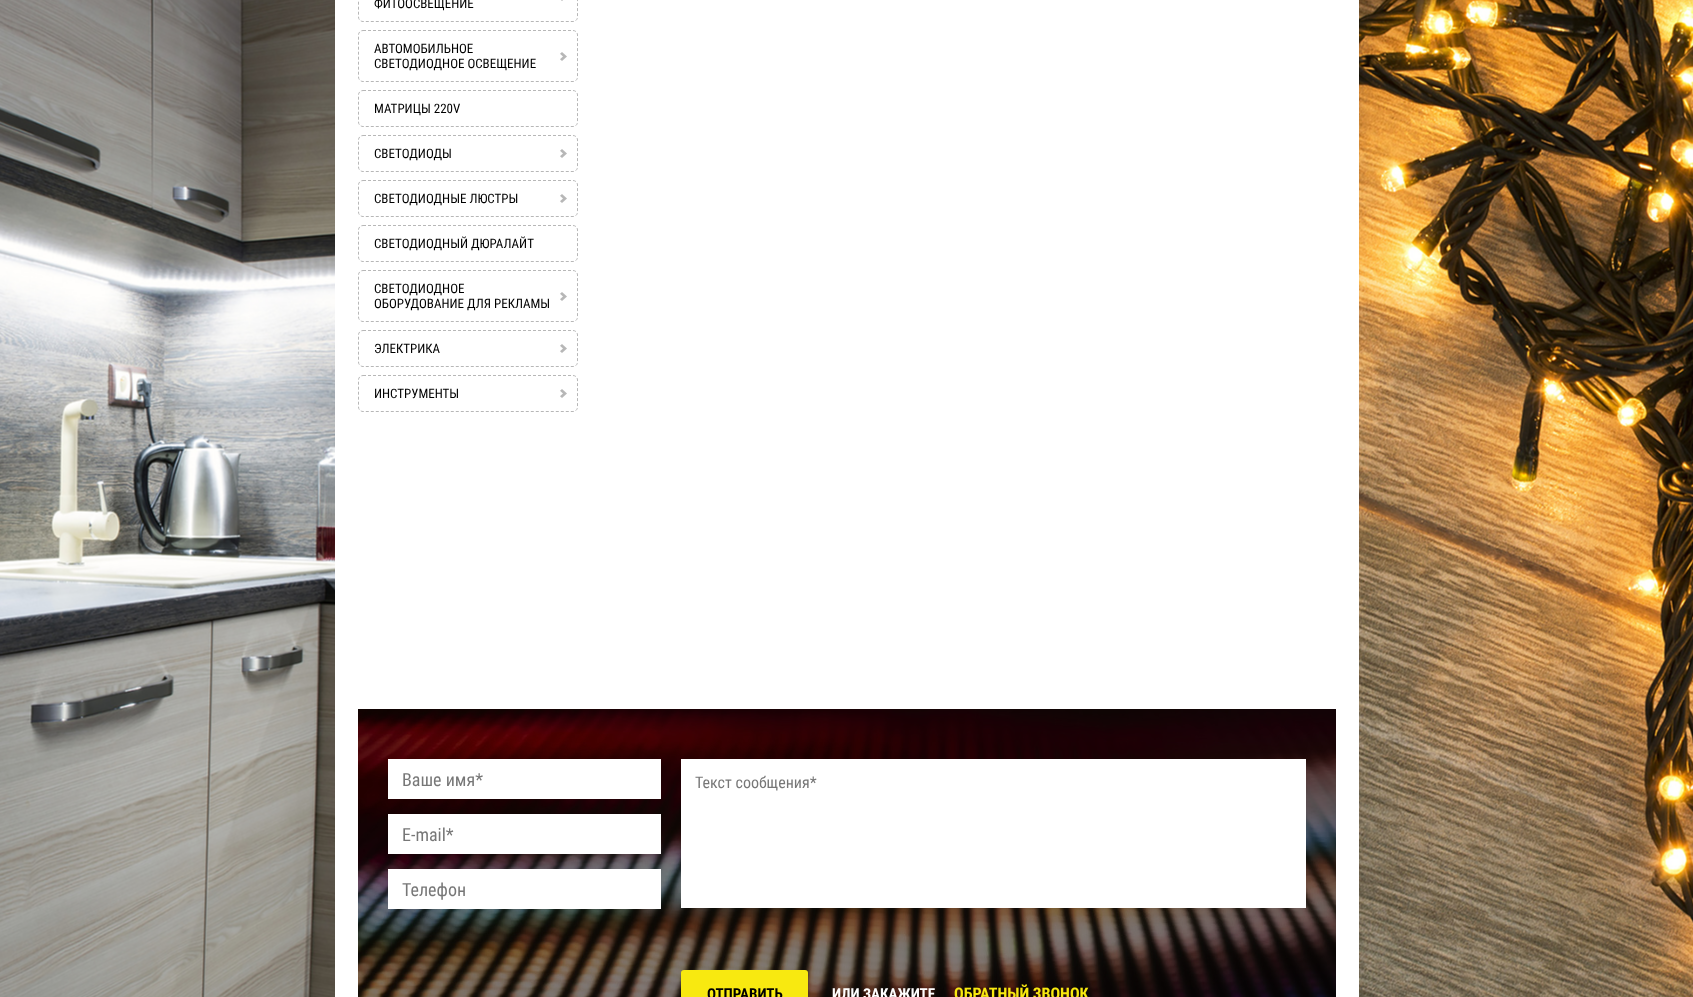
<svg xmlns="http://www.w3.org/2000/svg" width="1693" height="997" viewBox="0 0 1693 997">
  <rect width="100%" height="100%" fill="rgb(255,255,255)"/>
  <image x="0" y="0" width="1693" height="997" href="pic1.png"/>
  <rect x="335" y="0" width="1024" height="997" fill="rgb(255,255,255)"/>
  <path d="M363-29.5H573C575.5-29.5 577.5-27.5 577.5-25V17C577.5 19.5 575.5 21.5 573 21.5H363C360.5 21.5 358.5 19.5 358.5 17V-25C358.5-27.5 360.5-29.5 363-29.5Z" fill="none" stroke="rgb(183,183,183)" stroke-dasharray="3 2"/>
  <text x="374" y="8" font-family="Roboto Condensed" font-size="13" fill="rgb(0,0,0)">ФИТООСВЕЩЕНИЕ</text>
  <rect x="561" y="0" width="2" height="1" fill="rgb(215,215,215)"/>
  <path d="M363 30.5H573C575.5 30.5 577.5 32.5 577.5 35V77C577.5 79.5 575.5 81.5 573 81.5H363C360.5 81.5 358.5 79.5 358.5 77V35C358.5 32.5 360.5 30.5 363 30.5Z" fill="none" stroke="rgb(183,183,183)" stroke-dasharray="3 2"/>
  <text x="374" y="53" font-family="Roboto Condensed" font-size="13" fill="rgb(0,0,0)">АВТОМОБИЛЬНОЕ</text>
  <image x="560" y="52" width="7" height="9" href="pic2.png"/>
  <text x="374" y="68" font-family="Roboto Condensed" font-size="13" fill="rgb(0,0,0)">СВЕТОДИОДНОЕ ОСВЕЩЕНИЕ</text>
  <path d="M363 90.5H573C575.5 90.5 577.5 92.5 577.5 95V122C577.5 124.5 575.5 126.5 573 126.5H363C360.5 126.5 358.5 124.5 358.5 122V95C358.5 92.5 360.5 90.5 363 90.5Z" fill="none" stroke="rgb(183,183,183)" stroke-dasharray="3 2"/>
  <text x="374" y="113" font-family="Roboto Condensed" font-size="13" fill="rgb(0,0,0)">МАТРИЦЫ 220V</text>
  <path d="M363 135.5H573C575.5 135.5 577.5 137.5 577.5 140V167C577.5 169.5 575.5 171.5 573 171.5H363C360.5 171.5 358.5 169.5 358.5 167V140C358.5 137.5 360.5 135.5 363 135.5Z" fill="none" stroke="rgb(183,183,183)" stroke-dasharray="3 2"/>
  <text x="374" y="158" font-family="Roboto Condensed" font-size="13" fill="rgb(0,0,0)">СВЕТОДИОДЫ</text>
  <image x="560" y="149" width="7" height="9" href="pic2.png"/>
  <path d="M363 180.5H573C575.5 180.5 577.5 182.5 577.5 185V212C577.5 214.5 575.5 216.5 573 216.5H363C360.5 216.5 358.5 214.5 358.5 212V185C358.5 182.5 360.5 180.5 363 180.5Z" fill="none" stroke="rgb(183,183,183)" stroke-dasharray="3 2"/>
  <text x="374" y="203" font-family="Roboto Condensed" font-size="13" fill="rgb(0,0,0)">СВЕТОДИОДНЫЕ ЛЮСТРЫ</text>
  <image x="560" y="194" width="7" height="9" href="pic2.png"/>
  <path d="M363 225.5H573C575.5 225.5 577.5 227.5 577.5 230V257C577.5 259.5 575.5 261.5 573 261.5H363C360.5 261.5 358.5 259.5 358.5 257V230C358.5 227.5 360.5 225.5 363 225.5Z" fill="none" stroke="rgb(183,183,183)" stroke-dasharray="3 2"/>
  <text x="374" y="248" font-family="Roboto Condensed" font-size="13" fill="rgb(0,0,0)">СВЕТОДИОДНЫЙ ДЮРАЛАЙТ</text>
  <path d="M363 270.5H573C575.5 270.5 577.5 272.5 577.5 275V317C577.5 319.5 575.5 321.5 573 321.5H363C360.5 321.5 358.5 319.5 358.5 317V275C358.5 272.5 360.5 270.5 363 270.5Z" fill="none" stroke="rgb(183,183,183)" stroke-dasharray="3 2"/>
  <text x="374" y="293" font-family="Roboto Condensed" font-size="13" fill="rgb(0,0,0)">СВЕТОДИОДНОЕ</text>
  <image x="560" y="292" width="7" height="9" href="pic2.png"/>
  <text x="374" y="308" font-family="Roboto Condensed" font-size="13" fill="rgb(0,0,0)">ОБОРУДОВАНИЕ ДЛЯ РЕКЛАМЫ</text>
  <path d="M363 330.5H573C575.5 330.5 577.5 332.5 577.5 335V362C577.5 364.5 575.5 366.5 573 366.5H363C360.5 366.5 358.5 364.5 358.5 362V335C358.5 332.5 360.5 330.5 363 330.5Z" fill="none" stroke="rgb(183,183,183)" stroke-dasharray="3 2"/>
  <text x="374" y="353" font-family="Roboto Condensed" font-size="13" fill="rgb(0,0,0)">ЭЛЕКТРИКА</text>
  <image x="560" y="344" width="7" height="9" href="pic2.png"/>
  <path d="M363 375.5H573C575.5 375.5 577.5 377.5 577.5 380V407C577.5 409.5 575.5 411.5 573 411.5H363C360.5 411.5 358.5 409.5 358.5 407V380C358.5 377.5 360.5 375.5 363 375.5Z" fill="none" stroke="rgb(183,183,183)" stroke-dasharray="3 2"/>
  <text x="374" y="398" font-family="Roboto Condensed" font-size="13" fill="rgb(0,0,0)">ИНСТРУМЕНТЫ</text>
  <image x="560" y="389" width="7" height="9" href="pic2.png"/>
  <image x="358" y="709" width="978" height="288" href="pic3.png"/>
  <rect x="388" y="759" width="273" height="40" fill="rgb(255,255,255)"/>
  <text x="402" y="786" font-family="Roboto Condensed" font-size="18" fill="rgb(119,119,119)">Ваше имя*</text>
  <rect x="388" y="814" width="273" height="40" fill="rgb(255,255,255)"/>
  <text x="402" y="841" font-family="Roboto Condensed" font-size="18" fill="rgb(119,119,119)">E-mail*</text>
  <rect x="388" y="869" width="273" height="40" fill="rgb(255,255,255)"/>
  <text x="402" y="896" font-family="Roboto Condensed" font-size="18" fill="rgb(119,119,119)">Телефон</text>
  <rect x="681" y="759" width="625" height="149" fill="rgb(255,255,255)"/>
  <text x="695" y="788" font-family="Roboto Condensed" font-size="16" fill="rgb(119,119,119)">Текст сообщения*</text>
  <rect x="681" y="970" width="127" height="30" rx="3" fill="rgb(248,233,16)"/>
  <text x="707" y="999" font-family="Roboto Condensed" font-size="15" font-weight="bold" fill="rgb(0,0,0)">ОТПРАВИТЬ</text>
  <text x="832" y="999" font-family="Roboto Condensed" font-size="15" font-weight="bold" fill="rgb(255,255,255)">ИЛИ ЗАКАЖИТЕ</text>
  <text x="954" y="999" font-family="Roboto Condensed" font-size="16" font-weight="bold" fill="rgb(248,233,16)">ОБРАТНЫЙ ЗВОНОК</text>
</svg>
